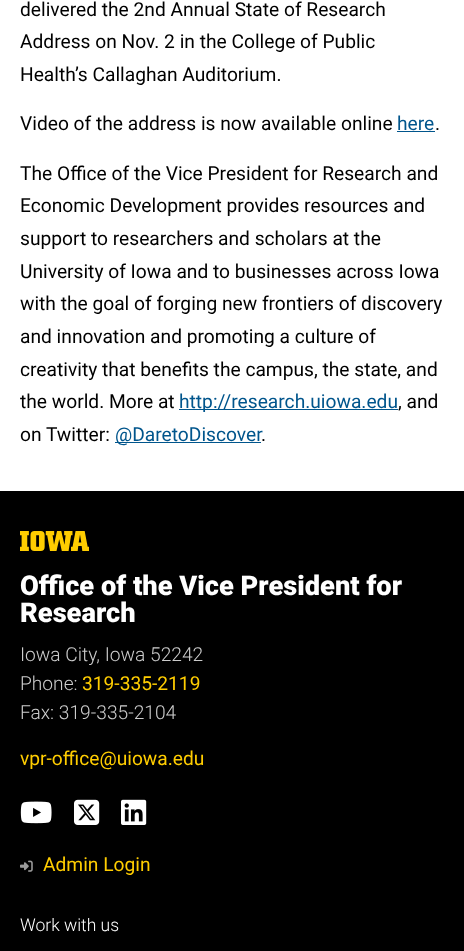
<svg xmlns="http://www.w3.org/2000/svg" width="464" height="951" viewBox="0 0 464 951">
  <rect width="100%" height="100%" fill="rgb(255,255,255)"/>
  <g font-family="Roboto" font-size="19.2" fill="rgb(0,0,0)">
    <text>
      <tspan x="20" y="16">delivered the 2nd Annual State of Research</tspan>
      <tspan x="20" y="48">Address on Nov. 2 in the College of Public</tspan>
      <tspan x="20" y="81">Health’s Callaghan Auditorium.</tspan>
    </text>
    <text x="20" y="130">Video of the address is now available online</text>
  </g>
  <text x="397" y="130" font-family="Roboto" font-size="19.2" fill="rgb(0,85,140)">here</text>
  <rect x="397" y="131" width="38" height="1" fill="rgb(0,85,140)"/>
  <g font-family="Roboto" font-size="19.2" fill="rgb(0,0,0)">
    <text x="435" y="130">.</text>
    <text>
      <tspan x="20" y="180">The Office of the Vice President for Research and</tspan>
      <tspan x="20" y="212">Economic Development provides resources and</tspan>
      <tspan x="20" y="245">support to researchers and scholars at the</tspan>
      <tspan x="20" y="278">University of Iowa and to businesses across Iowa</tspan>
      <tspan x="20" y="310">with the goal of forging new frontiers of discovery</tspan>
      <tspan x="20" y="343">and innovation and promoting a culture of</tspan>
      <tspan x="20" y="376">creativity that benefits the campus, the state, and</tspan>
      <tspan x="20" y="408">the world. More at</tspan>
    </text>
  </g>
  <rect x="179" y="409" width="219" height="1" fill="rgb(0,85,140)"/>
  <text x="179" y="408" font-family="Roboto" font-size="19.2" fill="rgb(0,85,140)">http://research.uiowa.edu</text>
  <g font-family="Roboto" font-size="19.2" fill="rgb(0,0,0)">
    <text x="398" y="408">, and</text>
    <text x="20" y="441">on Twitter:</text>
  </g>
  <rect x="115" y="442" width="146" height="1" fill="rgb(0,85,140)"/>
  <text x="115" y="441" font-family="Roboto" font-size="19.2" fill="rgb(0,85,140)">@DaretoDiscover</text>
  <text x="261" y="441" font-family="Roboto" font-size="19.2" fill="rgb(0,0,0)">.</text>
  <rect x="0" y="491" width="464" height="460" fill="rgb(0,0,0)"/>
  <image x="20" y="531" width="69" height="20" href="pic1.png"/>
  <g font-family="Roboto" font-size="27.25" font-weight="900" fill="rgb(255,255,255)">
    <text>
      <tspan x="20" y="595">Office of the Vice President for</tspan>
      <tspan x="20" y="622">Research</tspan>
    </text>
  </g>
  <g font-family="Roboto" font-size="19.2" font-weight="300" fill="rgb(204,204,204)">
    <text>
      <tspan x="20" y="661">Iowa City, Iowa 52242</tspan>
      <tspan x="20" y="690">Phone:</tspan>
    </text>
  </g>
  <text x="82" y="690" font-family="Roboto" font-size="19.2" fill="rgb(255,205,0)">319-335-2119</text>
  <text x="20" y="719" font-family="Roboto" font-size="19.2" font-weight="300" fill="rgb(204,204,204)">Fax: 319-335-2104</text>
  <text x="20" y="765" font-family="Roboto" font-size="19.2" fill="rgb(255,205,0)">vpr-office@uiowa.edu</text>
  <image x="20" y="801" width="32" height="23" href="pic2.png"/>
  <image x="74" y="799" width="26" height="26" href="pic3.png"/>
  <image x="121" y="799" width="26" height="26" href="pic4.png"/>
  <image x="20" y="860" width="13" height="12" href="pic5.png"/>
  <text x="43" y="871" font-family="Roboto" font-size="19.2" fill="rgb(255,205,0)">Admin Login</text>
  <text x="20" y="931" font-family="Roboto" font-size="17.5" font-weight="300" fill="rgb(255,255,255)">Work with us</text>
</svg>
